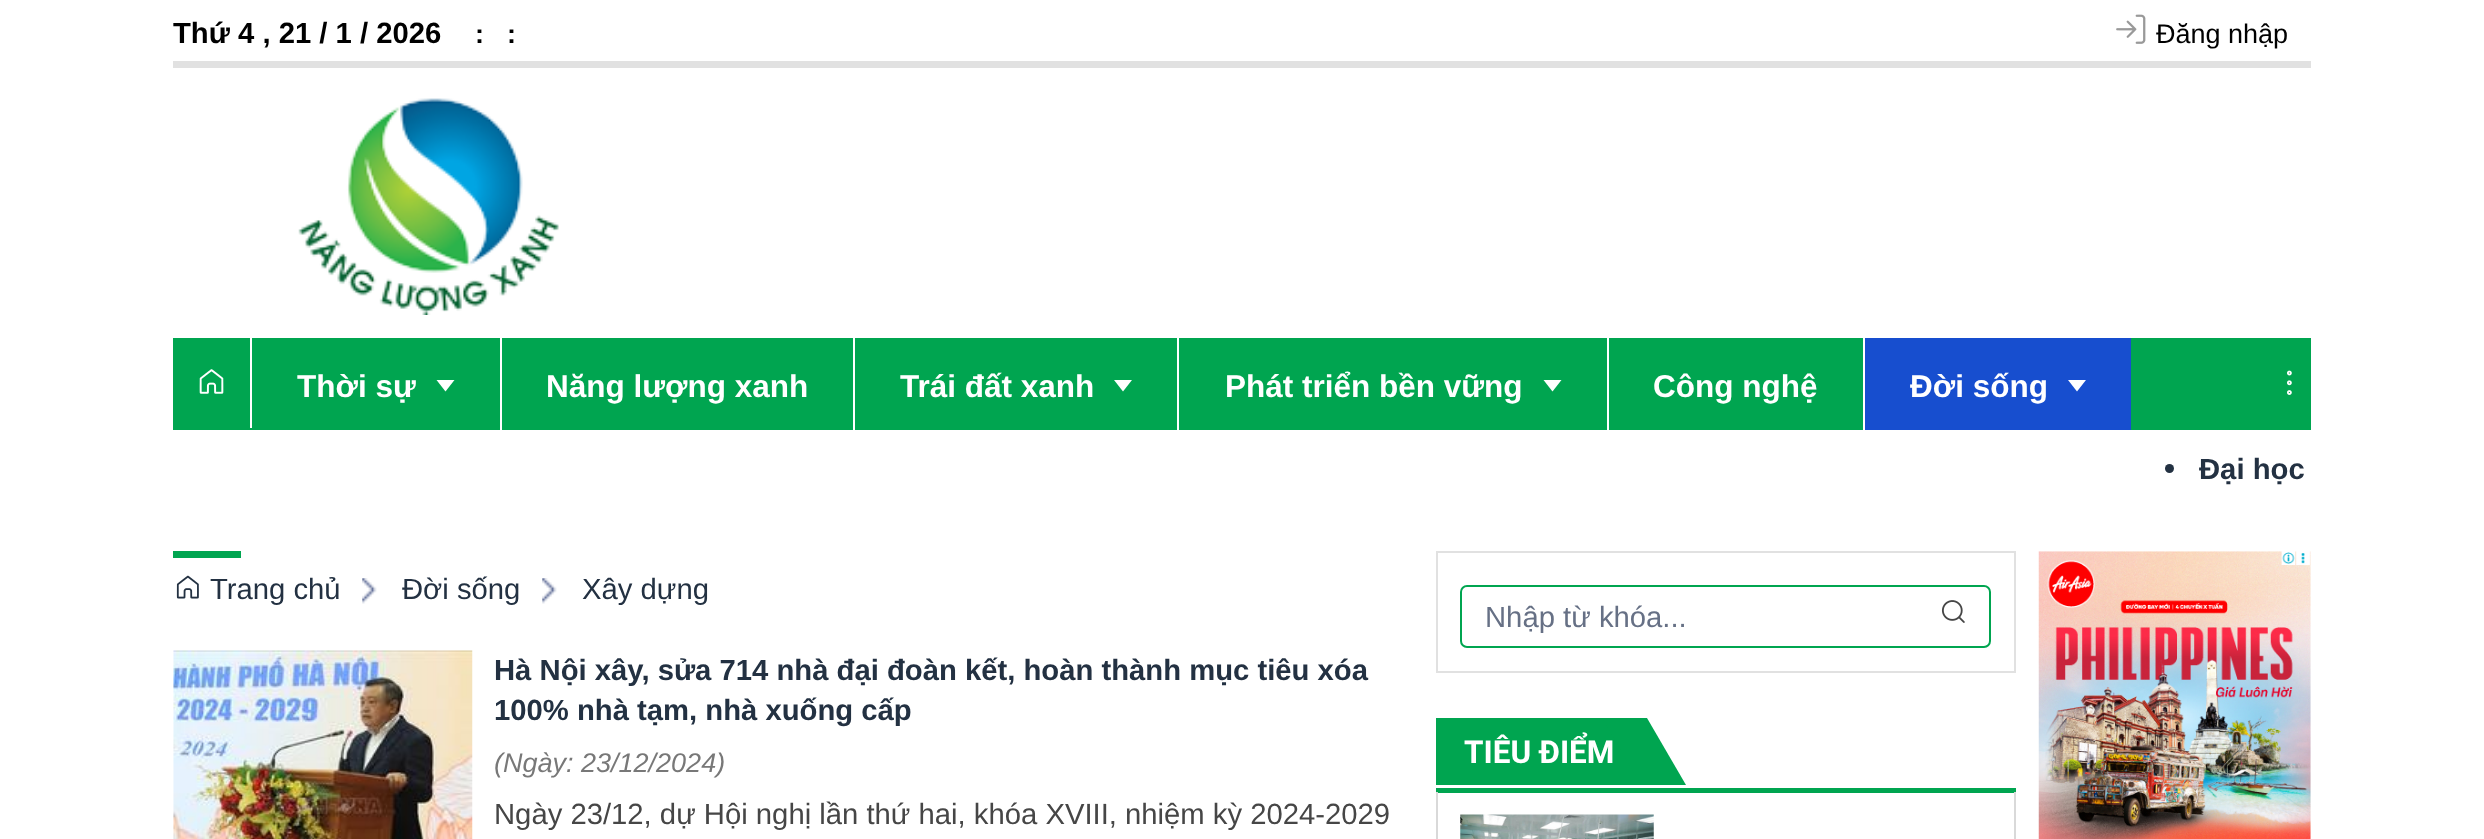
<svg xmlns="http://www.w3.org/2000/svg" width="2484" height="839" viewBox="0 0 2484 839">
  <rect width="100%" height="100%" fill="rgb(255,255,255)"/>
  <rect x="173" y="61" width="2138" height="7" fill="rgb(225,225,225)"/>
  <text x="173" y="43" font-family="Liberation Sans" font-size="29.25" font-weight="bold" fill="rgb(0,0,0)">Thứ 4 , 21 / 1 / 2026</text>
  <g font-family="Liberation Sans" font-size="27" font-weight="bold" fill="rgb(0,0,0)">
    <text x="475" y="43">:</text>
    <text x="507" y="43">:</text>
  </g>
  <image x="2116" y="14" width="30" height="30" href="pic1.png"/>
  <text x="2156" y="43" font-family="Liberation Sans" font-size="27" fill="rgb(0,0,0)">Đăng nhập</text>
  <image x="298" y="98" width="261" height="217" href="pic2.png"/>
  <rect x="173" y="338" width="2138" height="92" fill="rgb(0,165,80)"/>
  <rect x="250" y="338" width="2" height="90" fill="rgb(255,255,255)"/>
  <image x="199" y="369" width="25" height="25" href="pic3.png"/>
  <rect x="500" y="338" width="2" height="92" fill="rgb(255,255,255)"/>
  <text x="297" y="397" font-family="Liberation Sans" font-size="31.5" font-weight="bold" fill="rgb(255,255,255)">Thời sự</text>
  <path d="M436.5 380H454.5L445.5 391.5Z" fill="rgb(255,255,255)"/>
  <rect x="853" y="338" width="2" height="92" fill="rgb(255,255,255)"/>
  <text x="546" y="397" font-family="Liberation Sans" font-size="31.5" font-weight="bold" fill="rgb(255,255,255)">Năng lượng xanh</text>
  <rect x="1177" y="338" width="2" height="92" fill="rgb(255,255,255)"/>
  <text x="900" y="397" font-family="Liberation Sans" font-size="31.5" font-weight="bold" fill="rgb(255,255,255)">Trái đất xanh</text>
  <path d="M1114 380H1132L1123 391.5Z" fill="rgb(255,255,255)"/>
  <rect x="1607" y="338" width="2" height="92" fill="rgb(255,255,255)"/>
  <text x="1225" y="397" font-family="Liberation Sans" font-size="31.5" font-weight="bold" fill="rgb(255,255,255)">Phát triển bền vững</text>
  <path d="M1543.5 380H1561.5L1552.5 391.5Z" fill="rgb(255,255,255)"/>
  <rect x="1863" y="338" width="2" height="92" fill="rgb(255,255,255)"/>
  <text x="1653" y="397" font-family="Liberation Sans" font-size="31.5" font-weight="bold" fill="rgb(255,255,255)">Công nghệ</text>
  <rect x="1865" y="338" width="266" height="92" fill="rgb(23,78,207)"/>
  <text x="1910" y="397" font-family="Liberation Sans" font-size="31.5" font-weight="bold" fill="rgb(255,255,255)">Đời sống</text>
  <path d="M2068 380H2086L2077 391.5Z" fill="rgb(255,255,255)"/>
  <image x="2287" y="370" width="5" height="25" href="pic4.png"/>
  <circle cx="2169.5" cy="468.5" r="4.5" fill="rgb(35,49,66)"/>
  <text x="2199" y="479" font-family="Liberation Sans" font-size="29.25" font-weight="bold" fill="rgb(35,49,66)">Đại học</text>
  <rect x="173" y="551" width="68" height="7" fill="rgb(0,165,80)"/>
  <image x="176" y="575" width="23" height="24" href="pic5.png"/>
  <text x="210" y="599" font-family="Liberation Sans" font-size="29.25" fill="rgb(35,49,66)">Trang chủ</text>
  <image x="362" y="578" width="15" height="26" href="pic6.png"/>
  <text x="402" y="599" font-family="Liberation Sans" font-size="29.25" fill="rgb(35,49,66)">Đời sống</text>
  <image x="542" y="578" width="15" height="26" href="pic7.png"/>
  <text x="582" y="599" font-family="Liberation Sans" font-size="29.25" fill="rgb(35,49,66)">Xây dựng</text>
  <image x="173" y="650" width="300" height="189" href="pic8.png"/>
  <g font-family="Liberation Sans" font-size="29.25" font-weight="bold" fill="rgb(35,49,66)">
    <text>
      <tspan x="494" y="680">Hà Nội xây, sửa 714 nhà đại đoàn kết, hoàn thành mục tiêu xóa</tspan>
      <tspan x="494" y="720">100% nhà tạm, nhà xuống cấp</tspan>
    </text>
  </g>
  <text x="494" y="772" font-family="Liberation Sans" font-size="27" font-style="italic" fill="rgb(120,120,120)">(Ngày: 23/12/2024)</text>
  <text x="494" y="824" font-family="Liberation Sans" font-size="29.25" fill="rgb(70,70,70)">Ngày 23/12, dự Hội nghị lần thứ hai, khóa XVIII, nhiệm kỳ 2024-2029</text>
  <rect x="1437" y="552" width="578" height="120" fill="none" stroke="rgb(225,225,225)" stroke-width="2"/>
  <rect x="1461" y="586" width="529" height="61" rx="6" fill="none" stroke="rgb(0,165,80)" stroke-width="2"/>
  <text x="1485" y="627" font-family="Liberation Sans" font-size="29.25" fill="rgb(102,112,133)">Nhập từ khóa...</text>
  <image x="1941" y="600" width="24" height="23" href="pic9.png"/>
  <rect x="1436" y="788" width="580" height="5" fill="rgb(0,165,80)"/>
  <rect x="1436" y="718" width="205" height="67" fill="rgb(0,165,80)"/>
  <text x="1464" y="763" font-family="ROBOTO" font-size="31.5" font-weight="bold" fill="rgb(255,255,255)">TIÊU ĐIỂM</text>
  <path d="M1602 718H1647L1686 785H1641Z" fill="rgb(0,165,80)"/>
  <rect x="2014" y="792" width="2" height="47" fill="rgb(217,217,217)"/>
  <rect x="1436" y="792" width="2" height="47" fill="rgb(217,217,217)"/>
  <image x="1460" y="814" width="194" height="25" href="pic10.png"/>
  <image x="2038" y="551" width="273" height="288" href="pic11.png"/>
</svg>
